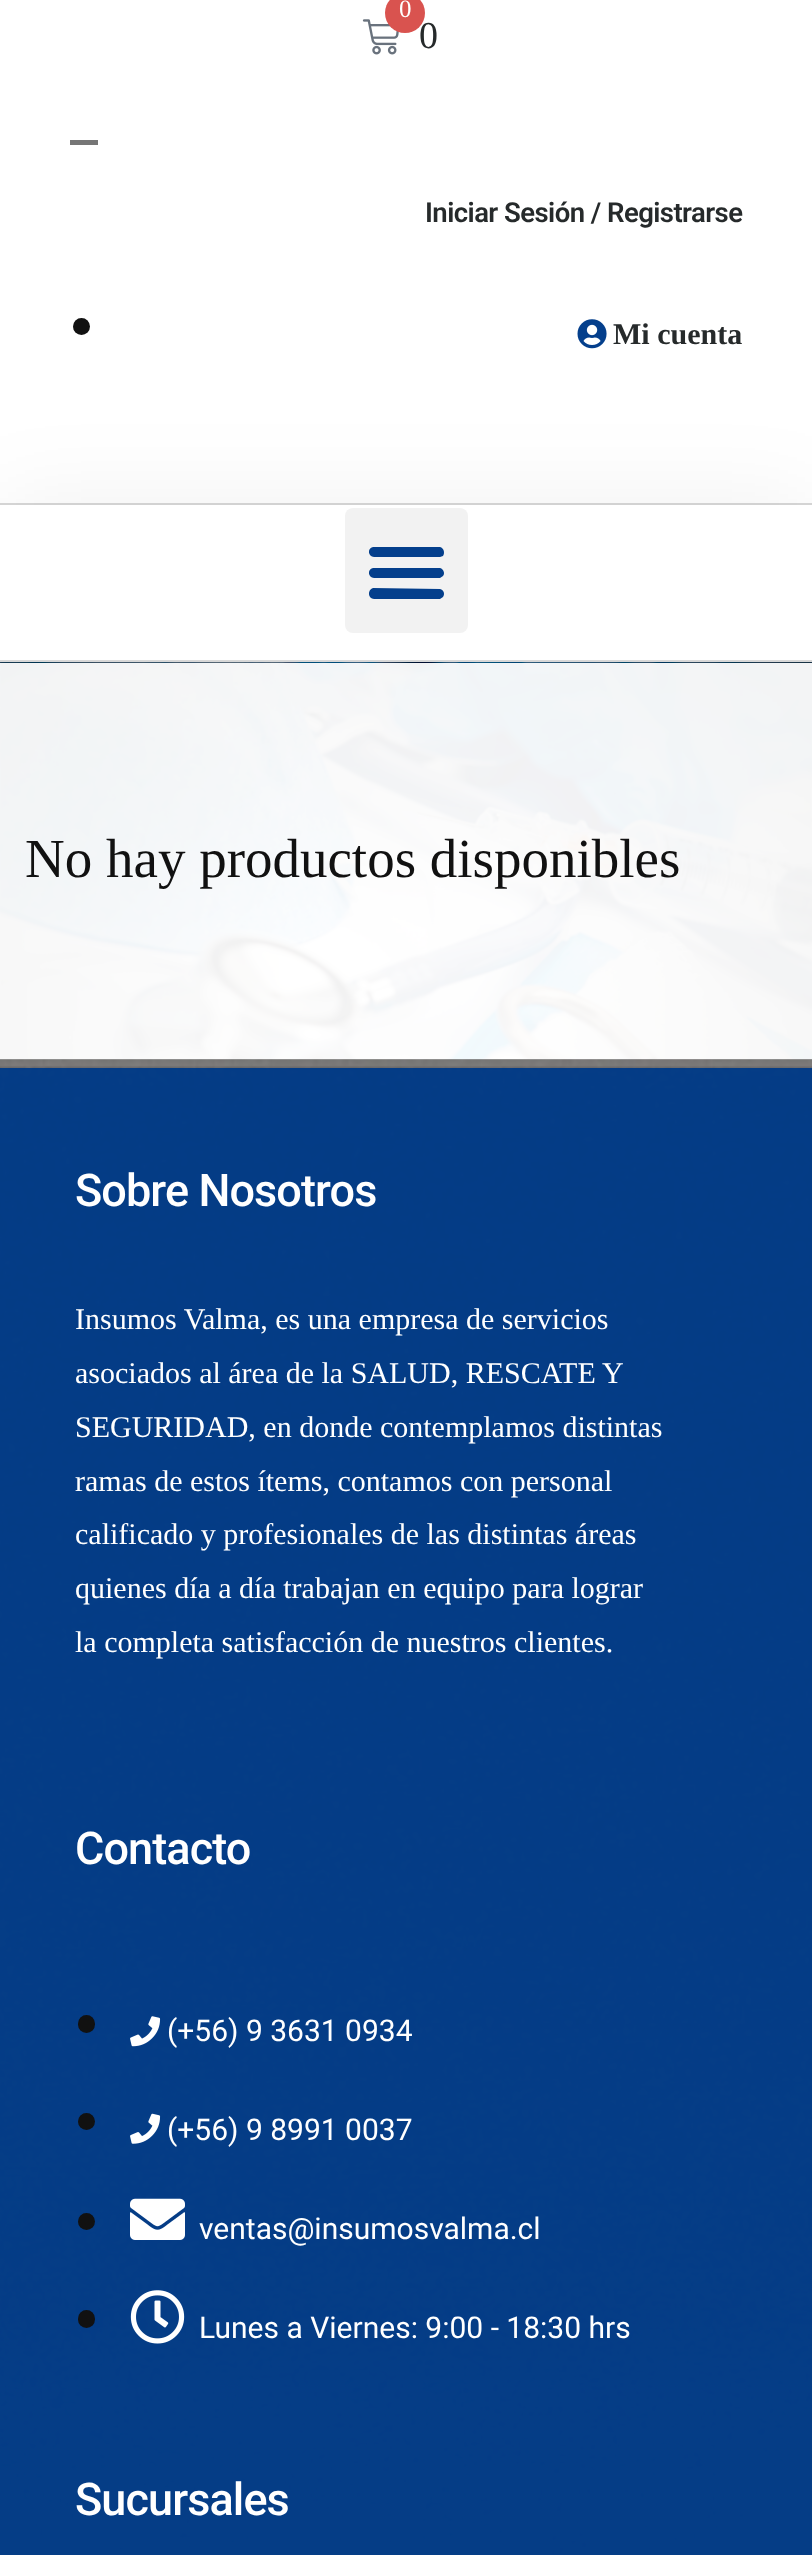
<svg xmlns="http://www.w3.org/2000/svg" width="812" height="2555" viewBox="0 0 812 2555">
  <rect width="100%" height="100%" fill="rgb(255,255,255)"/>
  <rect x="0" y="503" width="812" height="2" fill="rgb(216,216,216)"/>
  <image x="362" y="19" width="37" height="36" href="pic1.png"/>
  <text x="419" y="48" font-family="Liberation Serif" font-size="38" fill="rgb(38,42,43)">0</text>
  <circle cx="405" cy="13" r="20" fill="rgb(217,83,79)"/>
  <text x="399" y="17" font-family="Liberation Serif" font-size="25" fill="rgb(255,255,255)">0</text>
  <rect x="70" y="140" width="28" height="5" fill="rgb(118,118,118)"/>
  <text x="425" y="222" font-family="Roboto" font-size="27.5" font-weight="600" letter-spacing="-0.55" fill="rgb(38,42,43)">Iniciar Sesión / Registrarse</text>
  <circle cx="81.5" cy="326.5" r="8.5" fill="rgb(17,17,17)"/>
  <image x="577" y="319" width="30" height="30" href="pic2.png"/>
  <text x="613" y="344" font-family="Liberation Serif" font-size="30" font-weight="bold" fill="rgb(38,42,43)">Mi cuenta</text>
  <rect x="0" y="505" width="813" height="158" fill="rgba(0,0,0,0.06)" filter="blur(47.5px)"/>
  <rect x="0" y="505" width="812" height="155" fill="rgb(255,255,255)"/>
  <rect x="0" y="660" width="812" height="2" fill="rgb(216,216,216)"/>
  <rect x="345" y="508" width="123" height="125" rx="8" fill="rgb(242,242,242)"/>
  <path d="M374 557H440L443 556C445 553 444 548 440 547H373C367 548 368 557 374 557ZM374 578H440L443 576C445 574 444 569 440 568H373C367 569 368 578 374 578ZM374 599H440L443 597C445 594 444 590 440 589L373 588C367 590 368 599 374 599Z" fill="rgb(4,63,140)"/>
  <image x="0" y="662" width="812" height="398" href="pic3.png"/>
  <rect x="0" y="663" width="812" height="397" fill="rgba(255,255,255,0.95)"/>
  <text x="25" y="877" font-family="Liberation Serif" font-size="55" fill="rgb(17,17,17)">No hay productos disponibles</text>
  <image x="0" y="1059" width="812" height="1496" href="pic4.png"/>
  <rect x="0" y="1060" width="812" height="8" fill="rgba(255,255,255,0.39)"/>
  <text x="75" y="1206" font-family="Roboto" font-size="45" font-weight="500" letter-spacing="-0.9" fill="rgb(255,255,255)">Sobre Nosotros</text>
  <g font-family="Liberation Serif" font-size="30" fill="rgb(255,255,255)">
    <text>
      <tspan x="75" y="1329">Insumos Valma, es una empresa de servicios</tspan>
      <tspan x="75" y="1383">asociados al área de la SALUD, RESCATE Y</tspan>
      <tspan x="75" y="1437">SEGURIDAD, en donde contemplamos distintas</tspan>
      <tspan x="75" y="1491">ramas de estos ítems, contamos con personal</tspan>
      <tspan x="75" y="1544">calificado y profesionales de las distintas áreas</tspan>
      <tspan x="75" y="1598">quienes día a día trabajan en equipo para lograr</tspan>
      <tspan x="75" y="1652">la completa satisfacción de nuestros clientes.</tspan>
    </text>
  </g>
  <text x="75" y="1864" font-family="Roboto" font-size="45" font-weight="500" letter-spacing="-0.9" fill="rgb(255,255,255)">Contacto</text>
  <rect x="78" y="2015" width="17" height="18" rx="8.5" fill="rgb(17,17,17)"/>
  <image x="130" y="2016" width="31" height="31" href="pic5.png"/>
  <text x="167" y="2041" font-family="Roboto" font-size="30" fill="rgb(255,255,255)">(+56) 9 3631 0934</text>
  <circle cx="86.5" cy="2121.5" r="8.5" fill="rgb(17,17,17)"/>
  <image x="130" y="2113" width="31" height="31" href="pic6.png"/>
  <text x="167" y="2140" font-family="Roboto" font-size="30" fill="rgb(255,255,255)">(+56) 9 8991 0037</text>
  <circle cx="86.5" cy="2221.5" r="8.5" fill="rgb(17,17,17)"/>
  <image x="130" y="2198" width="55" height="42" href="pic7.png"/>
  <text x="199" y="2239" font-family="Roboto" font-size="30" fill="rgb(255,255,255)">ventas@insumosvalma.cl</text>
  <rect x="78" y="2310" width="17" height="18" rx="8.5" fill="rgb(17,17,17)"/>
  <image x="130" y="2290" width="55" height="54" href="pic8.png"/>
  <text x="199" y="2338" font-family="Roboto" font-size="30" fill="rgb(255,255,255)">Lunes a Viernes: 9:00 - 18:30 hrs</text>
  <text x="75" y="2515" font-family="Roboto" font-size="45" font-weight="500" letter-spacing="-0.9" fill="rgb(255,255,255)">Sucursales</text>
</svg>
